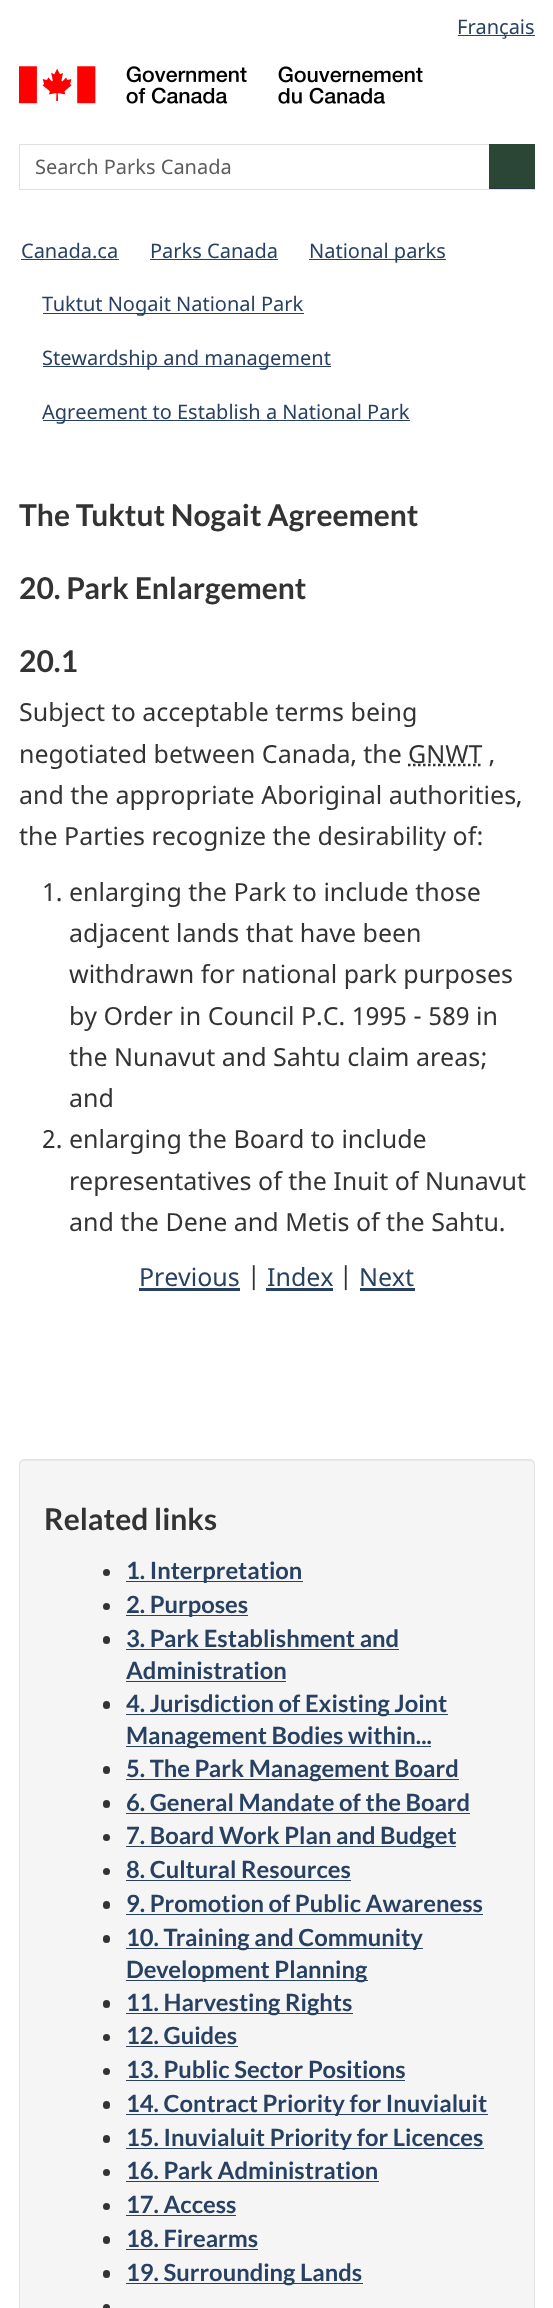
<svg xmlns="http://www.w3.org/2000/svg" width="553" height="2308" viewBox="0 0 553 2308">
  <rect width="100%" height="100%" fill="rgb(255,255,255)"/>
  <rect x="458" y="35" width="77" height="1" fill="rgb(40,65,98)"/>
  <text x="457" y="34" font-family="Noto Sans" font-size="20" fill="rgb(40,65,98)">Français</text>
  <image x="19" y="66" width="404" height="38" href="pic1.png"/>
  <rect x="19.5" y="144.5" width="515" height="45" fill="none" stroke="rgb(224,224,224)"/>
  <text x="35" y="174" font-family="Noto Sans" font-size="20" fill="rgb(92,92,92)">Search Parks Canada</text>
  <rect x="489" y="144" width="46" height="44" fill="rgb(43,70,53)"/>
  <rect x="489" y="188" width="46" height="1" fill="rgb(38,55,74)"/>
  <text x="21" y="258" font-family="Noto Sans" font-size="20" fill="rgb(40,65,98)">Canada.ca</text>
  <rect x="21" y="259" width="98" height="1" fill="rgb(40,65,98)"/>
  <text x="150" y="258" font-family="Noto Sans" font-size="20" fill="rgb(40,65,98)">Parks Canada</text>
  <rect x="150" y="259" width="128" height="1" fill="rgb(40,65,98)"/>
  <rect x="309" y="259" width="137" height="1" fill="rgb(40,65,98)"/>
  <text x="309" y="258" font-family="Noto Sans" font-size="20" fill="rgb(40,65,98)">National parks</text>
  <rect x="43" y="313" width="261" height="1" fill="rgb(40,65,98)"/>
  <text x="42" y="311" font-family="Noto Sans" font-size="20" fill="rgb(40,65,98)">Tuktut Nogait National Park</text>
  <rect x="43" y="366" width="288" height="1" fill="rgb(40,65,98)"/>
  <text x="42" y="365" font-family="Noto Sans" font-size="20" fill="rgb(40,65,98)">Stewardship and management</text>
  <rect x="43" y="420" width="367" height="1" fill="rgb(40,65,98)"/>
  <text x="42" y="419" font-family="Noto Sans" font-size="20" fill="rgb(40,65,98)">Agreement to Establish a National Park</text>
  <g font-family="Lato" font-size="30" font-weight="bold" fill="rgb(51,51,51)">
    <text x="19" y="526">The Tuktut Nogait Agreement</text>
    <text x="19" y="599">20. Park Enlargement</text>
    <text x="19" y="672">20.1</text>
  </g>
  <g font-family="Noto Sans" font-size="25" fill="rgb(51,51,51)">
    <text>
      <tspan x="19" y="721">Subject to acceptable terms being</tspan>
      <tspan x="19" y="763">negotiated between Canada, the</tspan>
    </text>
  </g>
  <path d="M408 765H482.5" fill="none" stroke="rgb(51,51,51)" stroke-width="2.5" stroke-dasharray="2.5 2.5"/>
  <g font-family="Noto Sans" font-size="25" fill="rgb(51,51,51)">
    <text x="408" y="763">GNWT ,</text>
    <text>
      <tspan x="19" y="804">and the appropriate Aboriginal authorities,</tspan>
      <tspan x="19" y="845">the Parties recognize the desirability of:</tspan>
    </text>
    <text x="42" y="901">1. enlarging the Park to include those</text>
    <text>
      <tspan x="69" y="942">adjacent lands that have been</tspan>
      <tspan x="69" y="983">withdrawn for national park purposes</tspan>
      <tspan x="69" y="1025">by Order in Council P.C. 1995 - 589 in</tspan>
      <tspan x="69" y="1066">the Nunavut and Sahtu claim areas;</tspan>
      <tspan x="69" y="1107">and</tspan>
    </text>
    <text x="42" y="1148">2. enlarging the Board to include</text>
    <text>
      <tspan x="69" y="1190">representatives of the Inuit of Nunavut</tspan>
      <tspan x="69" y="1231">and the Dene and Metis of the Sahtu.</tspan>
    </text>
  </g>
  <text x="139" y="1286" font-family="Noto Sans" font-size="25" fill="rgb(40,65,98)">Previous</text>
  <rect x="139" y="1288" width="101" height="3" fill="rgb(40,65,98)"/>
  <text x="247" y="1286" font-family="Noto Sans" font-size="25" fill="rgb(51,51,51)">|</text>
  <text x="267" y="1286" font-family="Noto Sans" font-size="25" fill="rgb(40,65,98)">Index</text>
  <rect x="266" y="1288" width="67" height="3" fill="rgb(40,65,98)"/>
  <text x="339" y="1286" font-family="Noto Sans" font-size="25" fill="rgb(51,51,51)">|</text>
  <text x="359" y="1286" font-family="Noto Sans" font-size="25" fill="rgb(40,65,98)">Next</text>
  <rect x="360" y="1288" width="55" height="3" fill="rgb(40,65,98)"/>
  <rect x="19" y="1459" width="516" height="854" rx="5" fill="rgb(245,245,245)"/>
  <path d="M24 1461H530C532 1461 534 1463 534 1465V1464C534 1462 532 1460 530 1460H24C22 1460 20 1462 20 1464V1465C20 1463 22 1461 24 1461Z" fill="rgb(233,233,233)"/>
  <rect x="19.5" y="1459.5" width="515" height="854" rx="4.5" fill="none" stroke="rgb(227,227,227)"/>
  <text x="44" y="1530" font-family="Lato" font-size="30" font-weight="bold" fill="rgb(51,51,51)">Related links</text>
  <circle cx="106.5" cy="1572.5" r="3.5" fill="rgb(51,51,51)"/>
  <rect x="126" y="1581" width="177" height="1" fill="rgb(40,65,98)"/>
  <text x="126" y="1579" font-family="Lato" font-size="23.75" font-weight="bold" fill="rgb(40,65,98)">1. Interpretation</text>
  <circle cx="106.5" cy="1606.5" r="3.5" fill="rgb(51,51,51)"/>
  <rect x="126" y="1615" width="122" height="1" fill="rgb(40,65,98)"/>
  <text x="126" y="1613" font-family="Lato" font-size="23.75" font-weight="bold" fill="rgb(40,65,98)">2. Purposes</text>
  <rect x="103" y="1636" width="7" height="8" rx="3.5" fill="rgb(51,51,51)"/>
  <text x="126" y="1647" font-family="Lato" font-size="23.75" font-weight="bold" fill="rgb(40,65,98)">3. Park Establishment and</text>
  <rect x="126" y="1649" width="273" height="1" fill="rgb(40,65,98)"/>
  <text x="126" y="1679" font-family="Lato" font-size="23.75" font-weight="bold" fill="rgb(40,65,98)">Administration</text>
  <rect x="126" y="1681" width="160" height="1" fill="rgb(40,65,98)"/>
  <rect x="103" y="1701" width="7" height="8" rx="3.5" fill="rgb(51,51,51)"/>
  <rect x="126" y="1714" width="322" height="1" fill="rgb(40,65,98)"/>
  <text x="126" y="1712" font-family="Lato" font-size="23.75" font-weight="bold" fill="rgb(40,65,98)">4. Jurisdiction of Existing Joint</text>
  <rect x="126" y="1746" width="305" height="1" fill="rgb(40,65,98)"/>
  <text x="126" y="1744" font-family="Lato" font-size="23.75" font-weight="bold" fill="rgb(40,65,98)">Management Bodies within...</text>
  <rect x="103" y="1766" width="7" height="8" rx="3.5" fill="rgb(51,51,51)"/>
  <rect x="126" y="1779" width="333" height="1" fill="rgb(40,65,98)"/>
  <text x="126" y="1777" font-family="Lato" font-size="23.75" font-weight="bold" fill="rgb(40,65,98)">5. The Park Management Board</text>
  <rect x="103" y="1800" width="7" height="8" rx="3.5" fill="rgb(51,51,51)"/>
  <text x="126" y="1811" font-family="Lato" font-size="23.75" font-weight="bold" fill="rgb(40,65,98)">6. General Mandate of the Board</text>
  <rect x="126" y="1813" width="344" height="1" fill="rgb(40,65,98)"/>
  <circle cx="106.5" cy="1837.5" r="3.5" fill="rgb(51,51,51)"/>
  <rect x="126" y="1846" width="330" height="1" fill="rgb(40,65,98)"/>
  <text x="126" y="1844" font-family="Lato" font-size="23.75" font-weight="bold" fill="rgb(40,65,98)">7. Board Work Plan and Budget</text>
  <circle cx="106.5" cy="1871.5" r="3.5" fill="rgb(51,51,51)"/>
  <text x="126" y="1878" font-family="Lato" font-size="23.75" font-weight="bold" fill="rgb(40,65,98)">8. Cultural Resources</text>
  <rect x="126" y="1880" width="225" height="1" fill="rgb(40,65,98)"/>
  <rect x="103" y="1901" width="7" height="8" rx="3.5" fill="rgb(51,51,51)"/>
  <text x="126" y="1912" font-family="Lato" font-size="23.75" font-weight="bold" fill="rgb(40,65,98)">9. Promotion of Public Awareness</text>
  <rect x="126" y="1914" width="357" height="1" fill="rgb(40,65,98)"/>
  <rect x="103" y="1935" width="7" height="8" rx="3.5" fill="rgb(51,51,51)"/>
  <rect x="126" y="1948" width="297" height="1" fill="rgb(40,65,98)"/>
  <text x="126" y="1946" font-family="Lato" font-size="23.75" font-weight="bold" fill="rgb(40,65,98)">10. Training and Community</text>
  <rect x="126" y="1980" width="242" height="1" fill="rgb(40,65,98)"/>
  <text x="126" y="1978" font-family="Lato" font-size="23.75" font-weight="bold" fill="rgb(40,65,98)">Development Planning</text>
  <rect x="103" y="2000" width="7" height="8" rx="3.5" fill="rgb(51,51,51)"/>
  <rect x="126" y="2013" width="227" height="1" fill="rgb(40,65,98)"/>
  <text x="126" y="2011" font-family="Lato" font-size="23.75" font-weight="bold" fill="rgb(40,65,98)">11. Harvesting Rights</text>
  <circle cx="106.5" cy="2037.5" r="3.5" fill="rgb(51,51,51)"/>
  <text x="126" y="2044" font-family="Lato" font-size="23.75" font-weight="bold" fill="rgb(40,65,98)">12. Guides</text>
  <rect x="126" y="2046" width="112" height="1" fill="rgb(40,65,98)"/>
  <circle cx="106.5" cy="2071.5" r="3.5" fill="rgb(51,51,51)"/>
  <text x="126" y="2078" font-family="Lato" font-size="23.75" font-weight="bold" fill="rgb(40,65,98)">13. Public Sector Positions</text>
  <rect x="126" y="2080" width="279" height="1" fill="rgb(40,65,98)"/>
  <rect x="103" y="2101" width="7" height="8" rx="3.5" fill="rgb(51,51,51)"/>
  <rect x="126" y="2114" width="362" height="1" fill="rgb(40,65,98)"/>
  <text x="126" y="2112" font-family="Lato" font-size="23.75" font-weight="bold" fill="rgb(40,65,98)">14. Contract Priority for Inuvialuit</text>
  <rect x="103" y="2135" width="7" height="8" rx="3.5" fill="rgb(51,51,51)"/>
  <rect x="126" y="2148" width="358" height="1" fill="rgb(40,65,98)"/>
  <text x="126" y="2146" font-family="Lato" font-size="23.75" font-weight="bold" fill="rgb(40,65,98)">15. Inuvialuit Priority for Licences</text>
  <circle cx="106.5" cy="2172.5" r="3.5" fill="rgb(51,51,51)"/>
  <text x="126" y="2179" font-family="Lato" font-size="23.75" font-weight="bold" fill="rgb(40,65,98)">16. Park Administration</text>
  <rect x="126" y="2181" width="253" height="1" fill="rgb(40,65,98)"/>
  <circle cx="106.5" cy="2206.5" r="3.5" fill="rgb(51,51,51)"/>
  <text x="126" y="2213" font-family="Lato" font-size="23.75" font-weight="bold" fill="rgb(40,65,98)">17. Access</text>
  <rect x="126" y="2215" width="110" height="1" fill="rgb(40,65,98)"/>
  <rect x="103" y="2236" width="7" height="8" rx="3.5" fill="rgb(51,51,51)"/>
  <text x="126" y="2247" font-family="Lato" font-size="23.75" font-weight="bold" fill="rgb(40,65,98)">18. Firearms</text>
  <rect x="126" y="2249" width="132" height="1" fill="rgb(40,65,98)"/>
  <rect x="103" y="2270" width="7" height="8" rx="3.5" fill="rgb(51,51,51)"/>
  <rect x="126" y="2283" width="237" height="1" fill="rgb(40,65,98)"/>
  <text x="126" y="2281" font-family="Lato" font-size="23.75" font-weight="bold" fill="rgb(40,65,98)">19. Surrounding Lands</text>
  <circle cx="106.5" cy="2307.5" r="3.5" fill="rgb(51,51,51)"/>
</svg>
